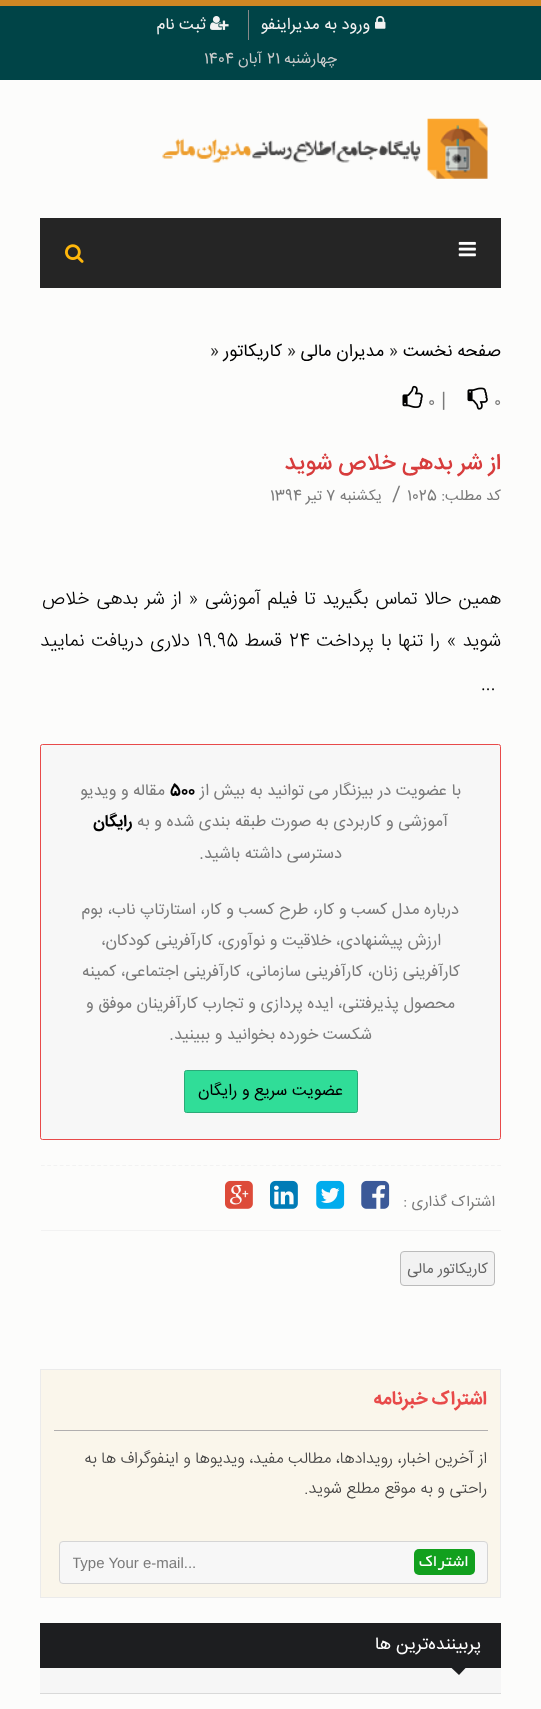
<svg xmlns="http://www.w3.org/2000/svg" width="541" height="1709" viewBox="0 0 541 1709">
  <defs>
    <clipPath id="clip1"><rect x="73" y="1554" width="401" height="17"/></clipPath>
  </defs>
  <rect width="100%" height="100%" fill="rgb(207,135,35)"/>
  <rect x="0" y="80" width="541" height="1629" fill="rgb(252,252,251)"/>
  <rect x="0" y="6" width="541" height="74" fill="rgb(0,68,71)"/>
  <rect x="248" y="10" width="1" height="30" fill="rgb(136,136,136)"/>
  <image x="375" y="16" width="11" height="13" href="pic1.png"/>
  <text x="370" y="29" font-family="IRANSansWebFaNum" font-size="16.25" direction="rtl" fill="rgb(243,242,242)">ورود به مدیراینفو</text>
  <image x="210" y="16" width="19" height="14" href="pic2.png"/>
  <text x="206" y="29" font-family="IRANSansWebFaNum" font-size="16.25" direction="rtl" fill="rgb(243,242,242)">ثبت نام</text>
  <text x="337" y="63" font-family="IRANSansWebFaNum" font-size="15" direction="rtl" fill="rgb(204,204,204)">چهارشنبه</text>
  <text x="267" y="63" font-family="IRANSansWebFaNum" font-size="15" fill="rgb(204,204,204)">21</text>
  <text x="262" y="63" font-family="IRANSansWebFaNum" font-size="15" direction="rtl" fill="rgb(204,204,204)">آبان</text>
  <text x="204" y="63" font-family="IRANSansWebFaNum" font-size="15" fill="rgb(204,204,204)">1404</text>
  <image x="162" y="118" width="326" height="61" href="pic3.png"/>
  <rect x="40" y="218" width="461" height="70" fill="rgb(37,37,37)"/>
  <image x="458" y="241" width="18" height="16" href="pic4.png"/>
  <image x="65" y="244" width="19" height="19" href="pic5.png"/>
  <text x="501" y="356" font-family="IRANSansWebFaNum" font-size="17.5" direction="rtl" fill="rgb(0,0,0)">صفحه نخست</text>
  <text x="389" y="356" font-family="IRANSansWebFaNum" font-size="17.5" fill="rgb(51,51,51)">»</text>
  <text x="384" y="356" font-family="IRANSansWebFaNum" font-size="17.5" direction="rtl" fill="rgb(0,0,0)">مدیران مالی</text>
  <text x="287" y="356" font-family="IRANSansWebFaNum" font-size="17.5" fill="rgb(51,51,51)">»</text>
  <text x="282" y="356" font-family="IRANSansWebFaNum" font-size="17.5" direction="rtl" fill="rgb(0,0,0)">کاریکاتور</text>
  <text x="210" y="356" font-family="IRANSansWebFaNum" font-size="17.5" fill="rgb(51,51,51)">»</text>
  <text x="494" y="406" font-family="IRANSansWebFaNum" font-size="15" fill="rgb(122,122,122)">0</text>
  <image x="467" y="387" width="21" height="23" href="pic6.png"/>
  <text x="441" y="406" font-family="IRANSansWebFaNum" font-size="20" fill="rgb(122,122,122)">|</text>
  <text x="428" y="406" font-family="IRANSansWebFaNum" font-size="15" fill="rgb(122,122,122)">0</text>
  <image x="402" y="385" width="21" height="23" href="pic7.png"/>
  <text x="501" y="469" font-family="IRANSansWebFaNum" font-size="22.5" font-weight="500" direction="rtl" fill="rgb(215,60,60)">از شر بدهی خلاص شوید</text>
  <text x="501" y="500" font-family="IRANSansWebFaNum" font-size="15" direction="rtl" fill="rgb(122,122,122)">کد مطلب:</text>
  <text x="407" y="500" font-family="IRANSansWebFaNum" font-size="15" fill="rgb(122,122,122)">1025</text>
  <text x="392" y="500" font-family="IRANSansWebFaNum" font-size="20" fill="rgb(122,122,122)">/</text>
  <text x="382" y="500" font-family="IRANSansWebFaNum" font-size="15" direction="rtl" fill="rgb(122,122,122)">یکشنبه</text>
  <text x="326" y="500" font-family="IRANSansWebFaNum" font-size="15" fill="rgb(122,122,122)">7</text>
  <text x="322" y="500" font-family="IRANSansWebFaNum" font-size="15" direction="rtl" fill="rgb(122,122,122)">تیر</text>
  <text x="270" y="500" font-family="IRANSansWebFaNum" font-size="15" fill="rgb(122,122,122)">1394</text>
  <g font-family="IRANSansWebFaNum" font-size="18.75" font-weight="300" direction="rtl" fill="rgb(0,0,0)">
    <text x="501" y="604" word-spacing="1.75">همین حالا تماس بگیرید تا فیلم آموزشی « از شر بدهی خلاص</text>
    <text x="501" y="646" word-spacing="1.5">شوید » را تنها با پرداخت</text>
  </g>
  <text x="289" y="646" font-family="IRANSansWebFaNum" font-size="18.75" font-weight="300" fill="rgb(0,0,0)">24</text>
  <text x="282" y="646" font-family="IRANSansWebFaNum" font-size="18.75" font-weight="300" direction="rtl" fill="rgb(0,0,0)">قسط</text>
  <text x="197" y="646" font-family="IRANSansWebFaNum" font-size="18.75" font-weight="300" fill="rgb(0,0,0)">19.95</text>
  <text x="190" y="646" word-spacing="1.5" font-family="IRANSansWebFaNum" font-size="18.75" font-weight="300" direction="rtl" fill="rgb(0,0,0)">دلاری دریافت نمایید</text>
  <text x="481" y="689" font-family="IRANSansWebFaNum" font-size="18.75" font-weight="300" fill="rgb(0,0,0)">...</text>
  <rect x="40.5" y="744.5" width="460" height="395" rx="2" fill="rgb(247,247,247)" stroke="rgb(232,74,74)"/>
  <text x="461" y="795" font-family="IRANSansWebFaNum" font-size="16.25" direction="rtl" fill="rgb(122,122,122)">با عضویت در بیزنگار می توانید به بیش از</text>
  <text x="170" y="795" font-family="IRANSansWebFaNum" font-size="16.25" font-weight="bold" fill="rgb(0,0,0)">500</text>
  <g font-family="IRANSansWebFaNum" font-size="16.25" direction="rtl" fill="rgb(122,122,122)">
    <text x="165" y="795">مقاله و ویدیو</text>
    <text x="448" y="826">آموزشی و کاربردی به صورت طبقه بندی شده و به</text>
  </g>
  <text x="132" y="826" font-family="IRANSansWebFaNum" font-size="16.25" font-weight="bold" direction="rtl" fill="rgb(0,0,0)">رایگان</text>
  <g font-family="IRANSansWebFaNum" font-size="16.25" direction="rtl" fill="rgb(122,122,122)">
    <text x="342" y="858">دسترسی داشته باشید.</text>
    <text x="459" y="914">درباره مدل کسب و کار، طرح کسب و کار، استارتاپ ناب، بوم</text>
    <text x="441" y="945">ارزش پیشنهادی، خلاقیت و نوآوری، کارآفرینی کودکان،</text>
    <text x="460" y="976">کارآفرینی زنان، کارآفرینی سازمانی، کارآفرینی اجتماعی، کمینه</text>
    <text x="455" y="1008">محصول پذیرفتنی، ایده پردازی و تجارب کارآفرینان موفق و</text>
    <text x="372" y="1039">شکست خورده بخوانید و ببینید.</text>
  </g>
  <rect x="184.5" y="1070.5" width="173" height="42" rx="2" fill="rgb(48,221,152)" stroke="rgb(43,170,120)"/>
  <text x="343" y="1095" font-family="IRANSansWebFaNum" font-size="16.25" direction="rtl" fill="rgb(0,0,0)">عضویت سریع و رایگان</text>
  <path d="M41 1165.5H501" fill="none" stroke="rgb(242,242,242)" stroke-width="1.2" stroke-dasharray="3.75 2.5"/>
  <rect x="41" y="1230" width="460" height="1" fill="rgb(242,242,242)"/>
  <text x="495" y="1206" font-family="IRANSansWebFaNum" font-size="15" direction="rtl" fill="rgb(122,122,122)">اشتراک گذاری :</text>
  <image x="361" y="1180" width="29" height="29" href="pic8.png"/>
  <image x="316" y="1180" width="29" height="29" href="pic9.png"/>
  <image x="270" y="1180" width="28" height="29" href="pic10.png"/>
  <image x="225" y="1180" width="28" height="29" href="pic11.png"/>
  <rect x="400.5" y="1251.5" width="94" height="34" rx="3.5" fill="rgb(242,242,242)" stroke="rgb(187,187,187)"/>
  <text x="488" y="1273" font-family="IRANSansWebFaNum" font-size="15" direction="rtl" fill="rgb(101,101,101)">کاریکاتور مالی</text>
  <rect x="40.5" y="1369.5" width="460" height="228" fill="rgb(250,246,235)" stroke="rgb(235,235,235)"/>
  <rect x="54" y="1430" width="434" height="1" fill="rgb(177,175,175)"/>
  <text x="487" y="1404" font-family="IRANSansWebFaNum" font-size="18.75" font-weight="bold" direction="rtl" fill="rgb(232,74,74)">اشتراک خبرنامه</text>
  <g font-family="IRANSansWebFaNum" font-size="16.25" font-weight="300" direction="rtl" fill="rgb(65,64,64)">
    <text>
      <tspan x="487" y="1463">از آخرین اخبار، رویدادها، مطالب مفید، ویدیوها و اینفوگراف ها به</tspan>
      <tspan x="487" y="1493">راحتی و به موقع مطلع شوید.</tspan>
    </text>
  </g>
  <rect x="59.5" y="1541.5" width="428" height="42" rx="3.5" fill="rgb(247,247,247)" stroke="rgb(213,213,213)"/>
  <rect x="414" y="1549" width="61" height="26" rx="5" fill="rgb(18,160,30)"/>
  <text x="469" y="1566" font-family="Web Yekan" font-size="17.5" direction="rtl" fill="rgb(255,255,255)">اشتراک</text>
  <g clip-path="url(#clip1)">
    <text x="72" y="1568" font-family="Liberation Sans" font-size="15" fill="rgb(122,122,122)">Type Your e-mail...</text>
  </g>
  <rect x="40" y="1668" width="461" height="25" fill="rgb(246,246,246)"/>
  <rect x="40" y="1693" width="461" height="1" fill="rgb(217,217,217)"/>
  <rect x="40" y="1623" width="461" height="45" fill="rgb(29,30,32)"/>
  <text x="481" y="1649" font-family="IRANSansWebFaNum" font-size="17.5" direction="rtl" fill="rgb(255,255,255)">پربیننده‌ترین ها</text>
  <path d="M451 1667.5H466L459 1675Z" fill="rgb(29,30,32)"/>
</svg>
